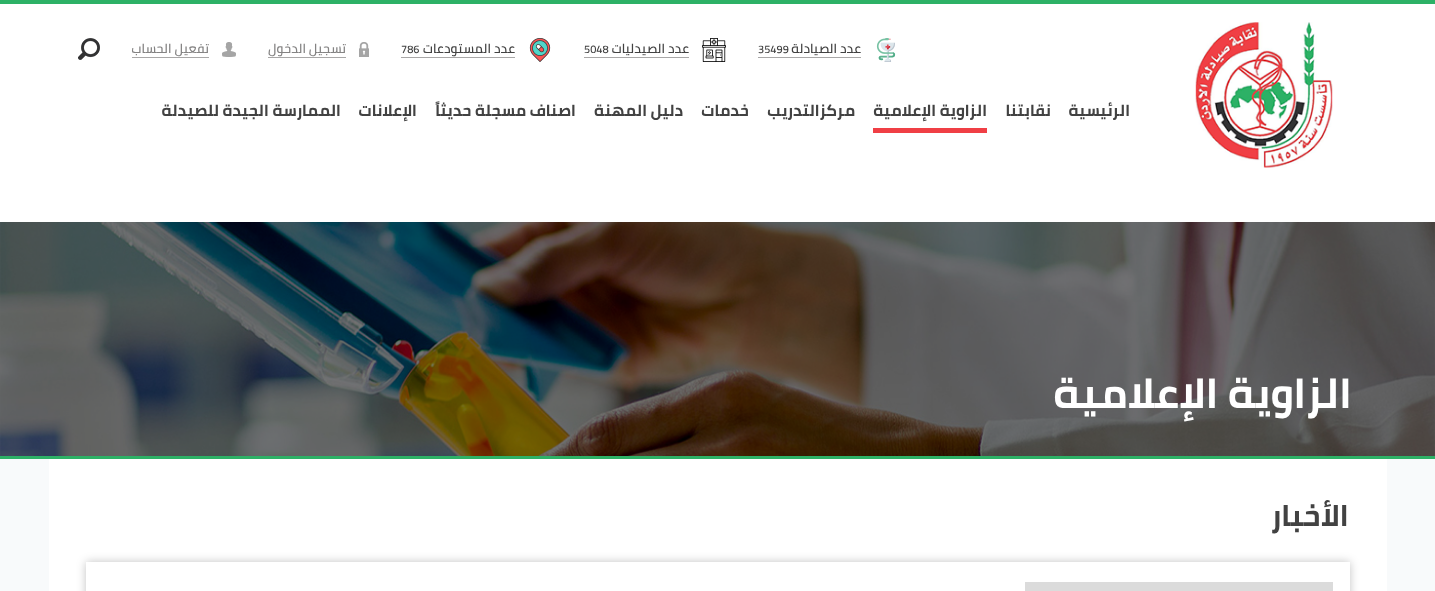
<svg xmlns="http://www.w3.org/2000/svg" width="1435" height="591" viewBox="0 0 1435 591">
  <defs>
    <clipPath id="clip1"><path d="M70 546H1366V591H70ZM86 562H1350V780H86Z" clip-rule="evenodd"/></clipPath>
  </defs>
  <rect width="100%" height="100%" fill="rgb(248,250,251)"/>
  <rect x="0" y="4" width="1435" height="218" fill="rgb(255,255,255)"/>
  <rect x="0" y="0" width="1435" height="4" fill="rgb(45,177,102)"/>
  <image x="1195" y="22" width="138" height="146" href="pic1.png"/>
  <image x="876" y="38" width="20" height="24" href="pic2.png"/>
  <text x="861" y="53" font-family="Cairo" font-size="13" font-weight="600" direction="rtl" fill="rgb(66,66,66)">عدد الصيادلة</text>
  <text x="758" y="53" font-family="Cairo" font-size="11" font-weight="600" fill="rgb(66,66,66)">35499</text>
  <rect x="758" y="57" width="103" height="1" fill="rgb(168,167,167)"/>
  <image x="702" y="38" width="24" height="24" href="pic3.png"/>
  <text x="689" y="53" font-family="Cairo" font-size="13" font-weight="600" direction="rtl" fill="rgb(66,66,66)">عدد الصيدليات</text>
  <text x="584" y="53" font-family="Cairo" font-size="11" font-weight="600" fill="rgb(66,66,66)">5048</text>
  <rect x="584" y="57" width="105" height="1" fill="rgb(168,167,167)"/>
  <image x="529" y="38" width="22" height="24" href="pic4.png"/>
  <text x="515" y="53" font-family="Cairo" font-size="13" font-weight="600" direction="rtl" fill="rgb(66,66,66)">عدد المستودعات</text>
  <text x="401" y="53" font-family="Cairo" font-size="11" font-weight="600" fill="rgb(66,66,66)">786</text>
  <rect x="401" y="57" width="114" height="1" fill="rgb(168,167,167)"/>
  <image x="359" y="42" width="10" height="15" href="pic5.png"/>
  <text x="346" y="53" font-family="Cairo" font-size="13" font-weight="600" direction="rtl" fill="rgb(132,131,131)">تسجيل الدخول</text>
  <rect x="268" y="57" width="78" height="1" fill="rgb(168,167,167)"/>
  <image x="222" y="42" width="14" height="15" href="pic6.png"/>
  <text x="209" y="53" font-family="Cairo" font-size="13" font-weight="600" direction="rtl" fill="rgb(132,131,131)">تفعيل الحساب</text>
  <rect x="132" y="57" width="77" height="1" fill="rgb(168,167,167)"/>
  <image x="78" y="38" width="22" height="22" href="pic7.png"/>
  <g font-family="Cairo" font-size="16" font-weight="bold" direction="rtl" fill="rgb(66,66,66)">
    <text x="1130" y="116">الرئيسية</text>
    <text x="1051" y="116">نقابتنا</text>
    <text x="987" y="116">الزاوية الإعلامية</text>
  </g>
  <rect x="873" y="128" width="114" height="5" fill="rgb(240,63,69)"/>
  <g font-family="Cairo" font-size="16" font-weight="bold" direction="rtl" fill="rgb(66,66,66)">
    <text x="855" y="116">مركزالتدريب</text>
    <text x="749" y="116">خدمات</text>
    <text x="683" y="116">دليل المهنة</text>
    <text x="576" y="116">اصناف مسجلة حديثاً</text>
    <text x="417" y="116">الإعلانات</text>
    <text x="341" y="116">الممارسة الجيدة للصيدلة</text>
  </g>
  <rect x="0" y="222" width="1435" height="234" fill="rgb(0,0,0)"/>
  <rect x="0" y="456" width="1435" height="3" fill="rgb(45,177,102)"/>
  <image x="0" y="222" width="1435" height="234" href="pic8.png"/>
  <text x="1352" y="408" font-family="Cairo" font-size="42" font-weight="bold" direction="rtl" fill="rgb(255,255,255)">الزاوية الإعلامية</text>
  <rect x="49" y="459" width="1338" height="132" fill="rgb(255,255,255)"/>
  <text x="1349" y="526" font-family="Cairo" font-size="30" font-weight="bold" direction="rtl" fill="rgb(66,66,66)">الأخبار</text>
  <g clip-path="url(#clip1)">
    <rect x="86" y="562" width="1264" height="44" fill="rgba(0,0,0,0.24)" filter="blur(5px)"/>
  </g>
  <rect x="1025" y="582" width="308" height="9" fill="rgb(219,219,219)"/>
</svg>
